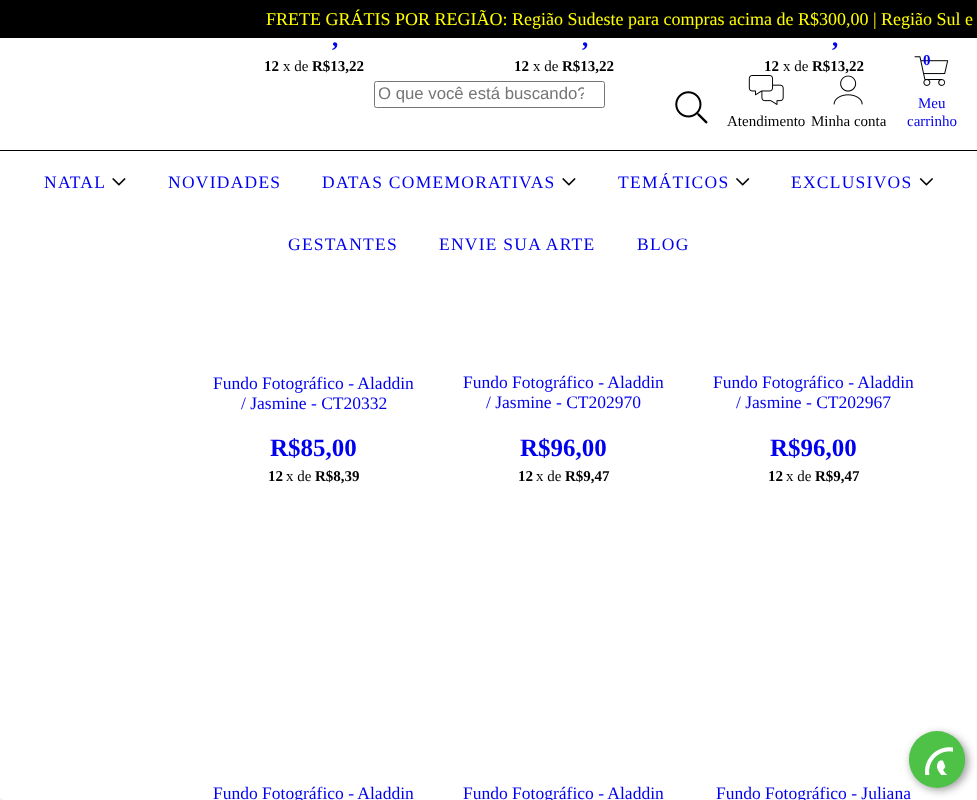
<svg xmlns="http://www.w3.org/2000/svg" width="977" height="800" viewBox="0 0 977 800">
  <defs>
    <clipPath id="clip1"><rect x="379" y="85" width="205" height="19"/></clipPath>
  </defs>
  <rect width="100%" height="100%" fill="rgb(255,255,255)"/>
  <rect x="0" y="0" width="977" height="38" fill="rgb(0,0,0)"/>
  <text x="266" y="25" font-family="Liberation Serif" font-size="18" fill="rgb(255,255,0)">FRETE GRÁTIS POR REGIÃO: Região Sudeste para compras acima de R$300,00 | Região Sul e</text>
  <rect x="374.5" y="81.5" width="230" height="26" rx="2" fill="none" stroke="rgb(118,118,118)"/>
  <g clip-path="url(#clip1)">
    <text x="378" y="99" font-family="Liberation Sans" font-size="16.75" fill="rgb(117,117,117)">O que você está buscando?</text>
  </g>
  <image x="675" y="91" width="33" height="33" href="pic1.png"/>
  <image x="748" y="75" width="36" height="30" href="pic2.png"/>
  <text x="727" y="126" font-family="Liberation Serif" font-size="15" fill="rgb(0,0,0)">Atendimento</text>
  <image x="833" y="75" width="30" height="30" href="pic3.png"/>
  <text x="811" y="126" font-family="Liberation Serif" font-size="15" fill="rgb(0,0,0)">Minha conta</text>
  <image x="914" y="56" width="35" height="30" href="pic4.png"/>
  <text x="923" y="65" font-family="Liberation Serif" font-size="15" font-weight="bold" fill="rgb(0,0,238)">0</text>
  <g font-family="Liberation Serif" font-size="15" fill="rgb(0,0,238)">
    <text x="918" y="108">Meu</text>
    <text x="907" y="126">carrinho</text>
  </g>
  <rect x="0" y="150" width="977" height="1" fill="rgb(0,0,0)"/>
  <text x="44" y="188" font-family="Liberation Serif" font-size="17.5" letter-spacing="1.25" fill="rgb(0,0,238)">NATAL</text>
  <image x="112" y="178" width="14" height="8" href="pic5.png"/>
  <g font-family="Liberation Serif" font-size="17.5" letter-spacing="1.25" fill="rgb(0,0,238)">
    <text x="168" y="188">NOVIDADES</text>
    <text x="322" y="188">DATAS COMEMORATIVAS</text>
  </g>
  <image x="562" y="178" width="14" height="8" href="pic5.png"/>
  <text x="618" y="188" font-family="Liberation Serif" font-size="17.5" letter-spacing="1.25" fill="rgb(0,0,238)">TEMÁTICOS</text>
  <image x="736" y="178" width="14" height="8" href="pic6.png"/>
  <text x="791" y="188" font-family="Liberation Serif" font-size="17.5" letter-spacing="1.25" fill="rgb(0,0,238)">EXCLUSIVOS</text>
  <image x="919" y="178" width="14" height="8" href="pic7.png"/>
  <g font-family="Liberation Serif" font-size="17.5" letter-spacing="1.25" fill="rgb(0,0,238)">
    <text x="288" y="250">GESTANTES</text>
    <text x="439" y="250">ENVIE SUA ARTE</text>
    <text x="637" y="250">BLOG</text>
  </g>
  <rect x="0" y="798" width="3" height="2" fill="rgb(245,245,245)"/>
  <text x="332" y="46" font-family="Liberation Serif" font-size="25" font-weight="bold" fill="rgb(0,0,238)">,</text>
  <text x="264" y="71" font-family="Liberation Serif" font-size="15" font-weight="bold" fill="rgb(0,0,0)">12</text>
  <text x="283" y="71" font-family="Liberation Serif" font-size="15" fill="rgb(0,0,0)">x de</text>
  <text x="312" y="71" font-family="Liberation Serif" font-size="15" font-weight="bold" fill="rgb(0,0,0)">R$13,22</text>
  <text x="582" y="46" font-family="Liberation Serif" font-size="25" font-weight="bold" fill="rgb(0,0,238)">,</text>
  <text x="514" y="71" font-family="Liberation Serif" font-size="15" font-weight="bold" fill="rgb(0,0,0)">12</text>
  <text x="533" y="71" font-family="Liberation Serif" font-size="15" fill="rgb(0,0,0)">x de</text>
  <text x="562" y="71" font-family="Liberation Serif" font-size="15" font-weight="bold" fill="rgb(0,0,0)">R$13,22</text>
  <text x="832" y="46" font-family="Liberation Serif" font-size="25" font-weight="bold" fill="rgb(0,0,238)">,</text>
  <text x="764" y="71" font-family="Liberation Serif" font-size="15" font-weight="bold" fill="rgb(0,0,0)">12</text>
  <text x="783" y="71" font-family="Liberation Serif" font-size="15" fill="rgb(0,0,0)">x de</text>
  <text x="812" y="71" font-family="Liberation Serif" font-size="15" font-weight="bold" fill="rgb(0,0,0)">R$13,22</text>
  <g font-family="Liberation Serif" font-size="17.5" fill="rgb(0,0,238)">
    <text x="213" y="389">Fundo Fotográfico - Aladdin</text>
    <text x="241" y="409">/ Jasmine - CT20332</text>
  </g>
  <text x="270" y="456" font-family="Liberation Serif" font-size="25" font-weight="bold" fill="rgb(0,0,238)">R$85,00</text>
  <text x="268" y="481" font-family="Liberation Serif" font-size="15" font-weight="bold" fill="rgb(0,0,0)">12</text>
  <text x="286" y="481" font-family="Liberation Serif" font-size="15" fill="rgb(0,0,0)">x de</text>
  <text x="315" y="481" font-family="Liberation Serif" font-size="15" font-weight="bold" fill="rgb(0,0,0)">R$8,39</text>
  <g font-family="Liberation Serif" font-size="17.5" fill="rgb(0,0,238)">
    <text x="463" y="388">Fundo Fotográfico - Aladdin</text>
    <text x="486" y="408">/ Jasmine - CT202970</text>
  </g>
  <text x="520" y="456" font-family="Liberation Serif" font-size="25" font-weight="bold" fill="rgb(0,0,238)">R$96,00</text>
  <text x="518" y="481" font-family="Liberation Serif" font-size="15" font-weight="bold" fill="rgb(0,0,0)">12</text>
  <text x="536" y="481" font-family="Liberation Serif" font-size="15" fill="rgb(0,0,0)">x de</text>
  <text x="565" y="481" font-family="Liberation Serif" font-size="15" font-weight="bold" fill="rgb(0,0,0)">R$9,47</text>
  <g font-family="Liberation Serif" font-size="17.5" fill="rgb(0,0,238)">
    <text x="713" y="388">Fundo Fotográfico - Aladdin</text>
    <text x="736" y="408">/ Jasmine - CT202967</text>
  </g>
  <text x="770" y="456" font-family="Liberation Serif" font-size="25" font-weight="bold" fill="rgb(0,0,238)">R$96,00</text>
  <text x="768" y="481" font-family="Liberation Serif" font-size="15" font-weight="bold" fill="rgb(0,0,0)">12</text>
  <text x="786" y="481" font-family="Liberation Serif" font-size="15" fill="rgb(0,0,0)">x de</text>
  <text x="815" y="481" font-family="Liberation Serif" font-size="15" font-weight="bold" fill="rgb(0,0,0)">R$9,47</text>
  <g font-family="Liberation Serif" font-size="17.5" fill="rgb(0,0,238)">
    <text x="213" y="799">Fundo Fotográfico - Aladdin</text>
    <text x="463" y="799">Fundo Fotográfico - Aladdin</text>
    <text x="716" y="799">Fundo Fotográfico - Juliana</text>
  </g>
  <rect x="911" y="734" width="57" height="56" rx="28" fill="rgba(0,0,0,0.4)" filter="blur(4px)"/>
  <rect x="909" y="731" width="56" height="57" rx="28" fill="rgb(77,194,71)"/>
  <image x="925" y="747" width="28" height="28" href="pic8.png"/>
</svg>
